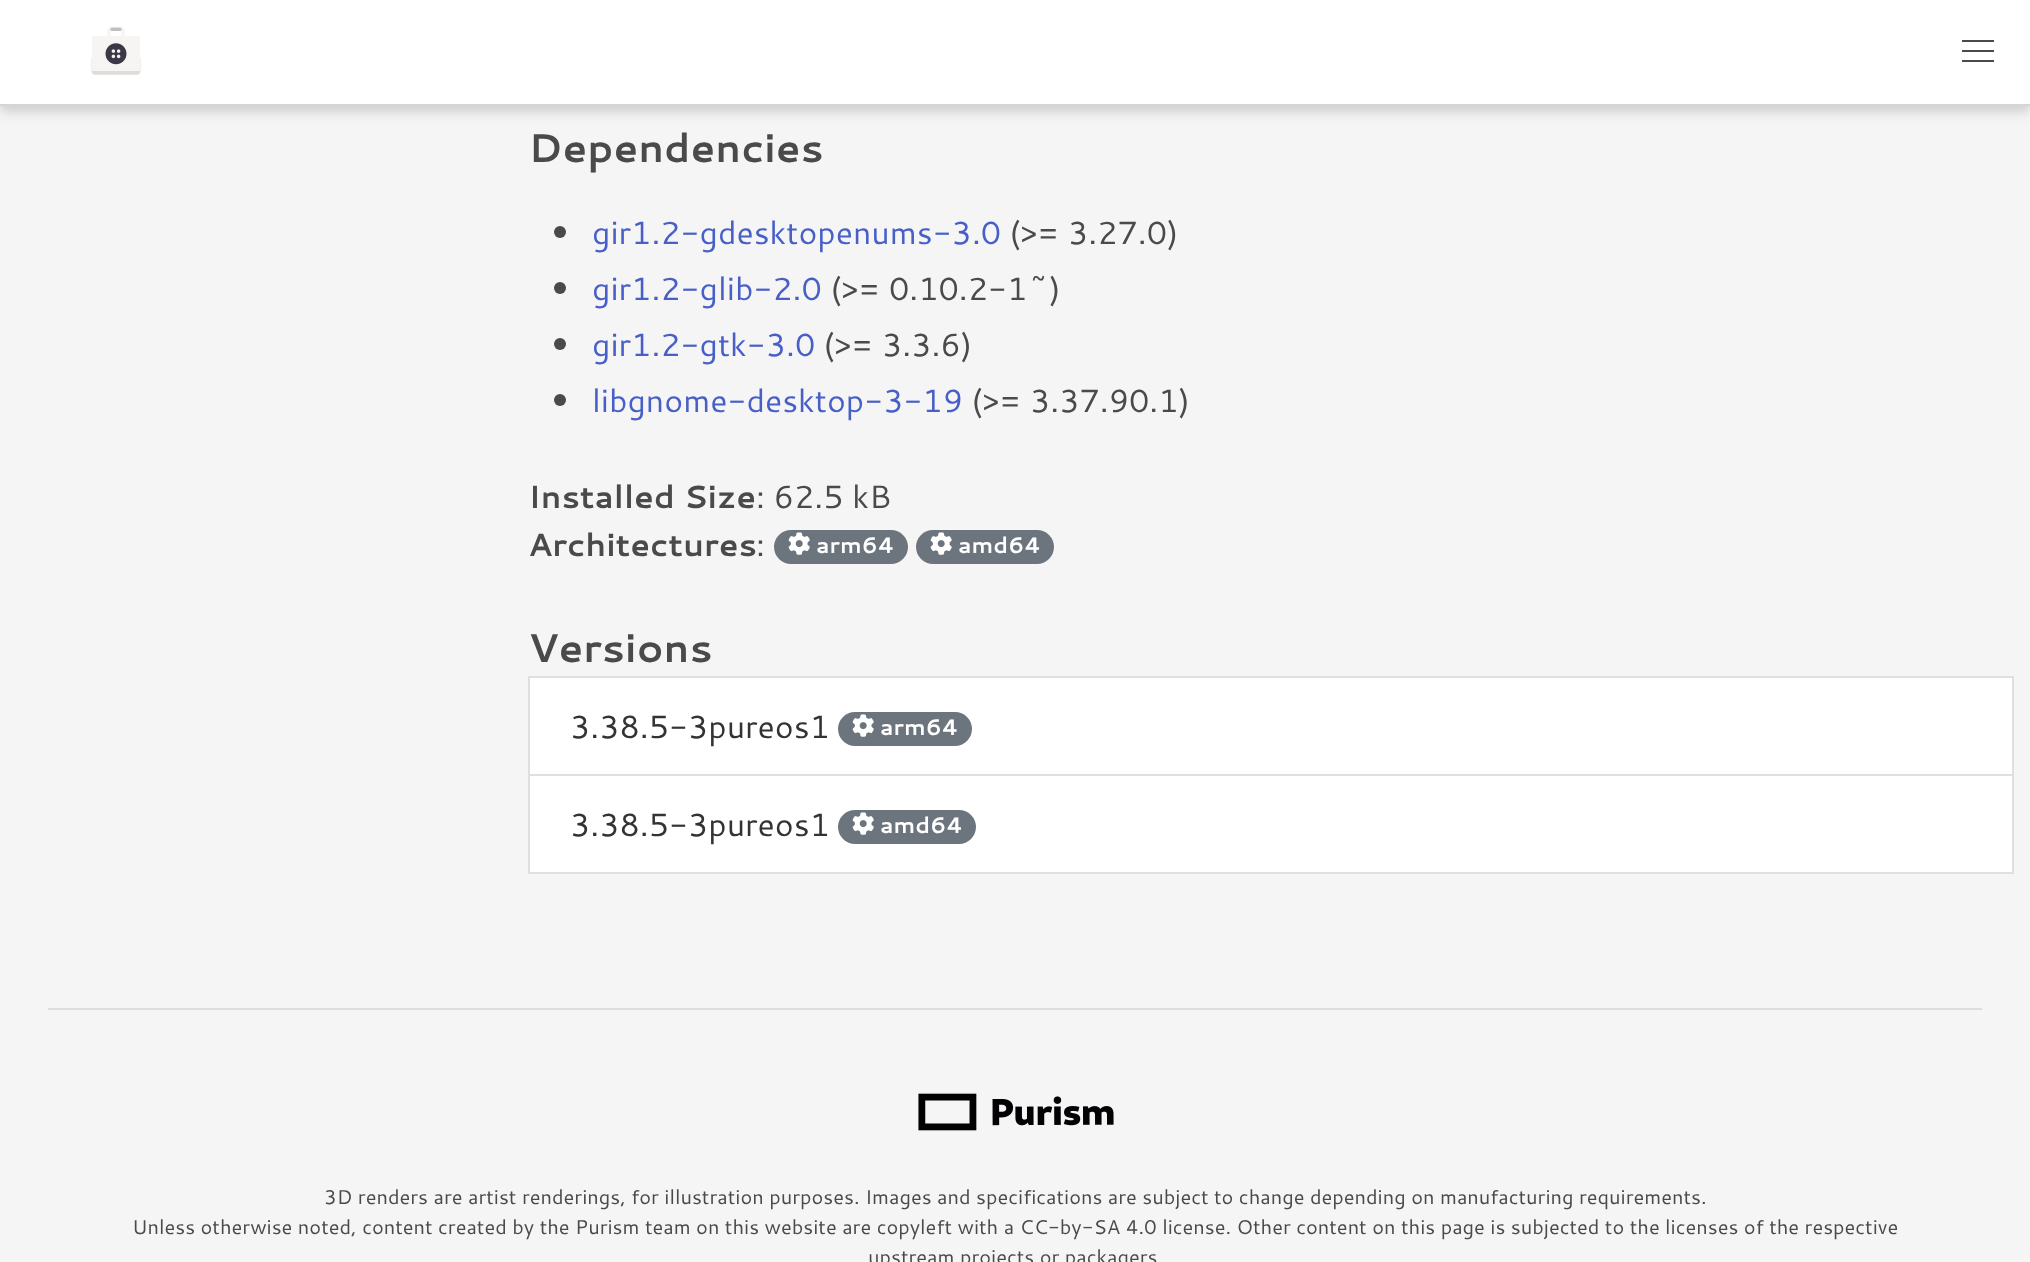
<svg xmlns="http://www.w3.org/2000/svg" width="2030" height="1262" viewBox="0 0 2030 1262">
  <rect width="100%" height="100%" fill="rgb(245,245,245)"/>
  <rect x="0" y="-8" width="2030" height="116" fill="rgba(0,0,0,0.08)" filter="blur(10px)"/>
  <rect x="0" y="-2" width="2030" height="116" fill="rgba(0,0,0,0.06)" filter="blur(5px)"/>
  <rect x="2" y="-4" width="2026" height="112" fill="rgba(0,0,0,0.06)" filter="blur(4px)"/>
  <rect x="0" y="0" width="2030" height="104" fill="rgb(255,255,255)"/>
  <rect x="0" y="104" width="2030" height="2" fill="rgb(213,213,213)"/>
  <image x="91" y="27" width="50" height="48" href="pic1.png"/>
  <rect x="1962" y="40" width="32" height="2" fill="rgb(74,74,74)"/>
  <rect x="1962" y="50" width="32" height="2" fill="rgb(74,74,74)"/>
  <rect x="1962" y="60" width="32" height="2" fill="rgb(74,74,74)"/>
  <text x="528" y="162" font-family="Cantarell" font-size="40" font-weight="bold" fill="rgb(74,74,74)">Dependencies</text>
  <circle cx="560" cy="232" r="6" fill="rgb(74,74,74)"/>
  <text x="592" y="244" font-family="Cantarell" font-size="32" fill="rgb(72,95,199)">gir1.2-gdesktopenums-3.0</text>
  <text x="1009" y="244" font-family="Cantarell" font-size="32" fill="rgb(74,74,74)">(&gt;= 3.27.0)</text>
  <circle cx="560" cy="288" r="6" fill="rgb(74,74,74)"/>
  <text x="592" y="300" font-family="Cantarell" font-size="32" fill="rgb(72,95,199)">gir1.2-glib-2.0</text>
  <text x="830" y="300" font-family="Cantarell" font-size="32" fill="rgb(74,74,74)">(&gt;= 0.10.2-1~)</text>
  <circle cx="560" cy="344" r="6" fill="rgb(74,74,74)"/>
  <text x="592" y="356" font-family="Cantarell" font-size="32" fill="rgb(72,95,199)">gir1.2-gtk-3.0</text>
  <text x="823" y="356" font-family="Cantarell" font-size="32" fill="rgb(74,74,74)">(&gt;= 3.3.6)</text>
  <circle cx="560" cy="400" r="6" fill="rgb(74,74,74)"/>
  <text x="592" y="412" font-family="Cantarell" font-size="32" fill="rgb(72,95,199)">libgnome-desktop-3-19</text>
  <text x="971" y="412" font-family="Cantarell" font-size="32" fill="rgb(74,74,74)">(&gt;= 3.37.90.1)</text>
  <text x="528" y="508" font-family="Cantarell" font-size="32" font-weight="bold" fill="rgb(74,74,74)">Installed Size</text>
  <text x="756" y="508" font-family="Cantarell" font-size="32" fill="rgb(74,74,74)">: 62.5 kB</text>
  <text x="528" y="556" font-family="Cantarell" font-size="32" font-weight="bold" fill="rgb(74,74,74)">Architectures</text>
  <text x="756" y="556" font-family="Cantarell" font-size="32" fill="rgb(74,74,74)">:</text>
  <rect x="774" y="530" width="134" height="34" rx="17" fill="rgb(108,117,125)"/>
  <image x="788" y="532" width="22" height="23" href="pic2.png"/>
  <text x="816" y="553" font-family="Cantarell" font-size="22.5" font-weight="bold" fill="rgb(255,255,255)">arm64</text>
  <rect x="916" y="530" width="138" height="34" rx="17" fill="rgb(108,117,125)"/>
  <image x="930" y="532" width="22" height="23" href="pic2.png"/>
  <text x="958" y="553" font-family="Cantarell" font-size="22.5" font-weight="bold" fill="rgb(255,255,255)">amd64</text>
  <text x="528" y="662" font-family="Cantarell" font-size="40" font-weight="bold" fill="rgb(74,74,74)">Versions</text>
  <rect x="529" y="677" width="1484" height="98" fill="rgb(255,255,255)" stroke="rgb(223,223,223)" stroke-width="2"/>
  <text x="570" y="738" font-family="Cantarell" font-size="32" fill="rgb(51,51,51)">3.38.5-3pureos1</text>
  <rect x="838" y="712" width="134" height="34" rx="17" fill="rgb(108,117,125)"/>
  <image x="852" y="714" width="22" height="23" href="pic2.png"/>
  <text x="880" y="735" font-family="Cantarell" font-size="22.5" font-weight="bold" fill="rgb(255,255,255)">arm64</text>
  <rect x="529" y="775" width="1484" height="98" fill="rgb(255,255,255)" stroke="rgb(223,223,223)" stroke-width="2"/>
  <text x="570" y="836" font-family="Cantarell" font-size="32" fill="rgb(51,51,51)">3.38.5-3pureos1</text>
  <rect x="838" y="810" width="138" height="34" rx="17" fill="rgb(108,117,125)"/>
  <image x="852" y="812" width="22" height="23" href="pic2.png"/>
  <text x="880" y="833" font-family="Cantarell" font-size="22.5" font-weight="bold" fill="rgb(255,255,255)">amd64</text>
  <rect x="48" y="1008" width="1934" height="2" fill="rgb(221,221,221)"/>
  <image x="918" y="1093" width="196" height="38" href="pic3.png"/>
  <g font-family="Cantarell" font-size="20" fill="rgb(74,74,74)">
    <text x="324" y="1204">3D renders are artist renderings, for illustration purposes. Images and specifications are subject to change depending on manufacturing requirements.</text>
    <text x="132" y="1234">Unless otherwise noted, content created by the Purism team on this website are copyleft with a CC-by-SA 4.0 license. Other content on this page is subjected to the licenses of the respective</text>
    <text x="868" y="1264">upstream projects or packagers</text>
  </g>
</svg>
